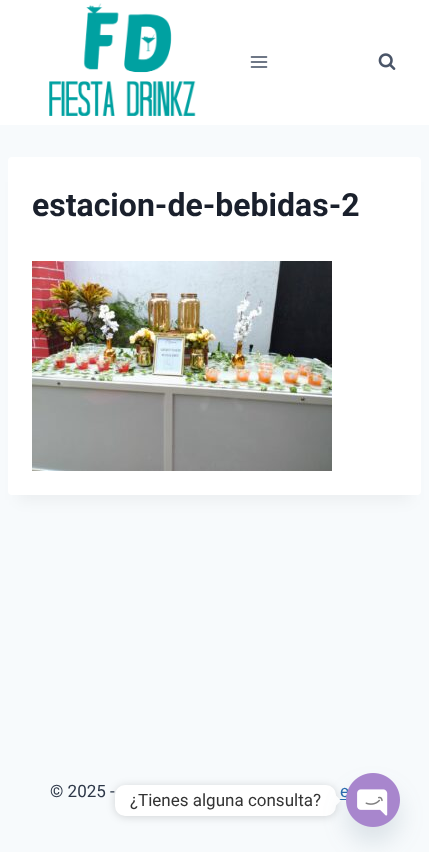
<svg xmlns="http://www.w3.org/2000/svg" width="429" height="852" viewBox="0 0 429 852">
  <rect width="100%" height="100%" fill="rgb(247,250,252)"/>
  <rect x="0" y="0" width="429" height="125" fill="rgb(255,255,255)"/>
  <image x="49" y="3" width="147" height="113" href="pic1.png"/>
  <image x="250" y="56" width="18" height="12" href="pic2.png"/>
  <image x="378" y="53" width="18" height="17" href="pic3.png"/>
  <rect x="18" y="182" width="393" height="318" fill="rgba(0,0,0,0.05)" filter="blur(7.5px)"/>
  <rect x="8" y="157" width="413" height="338" rx="4" fill="rgb(255,255,255)"/>
  <text x="32" y="216" font-family="Roboto" font-size="32" font-weight="bold" fill="rgb(26,32,44)">estacion-de-bebidas-2</text>
  <image x="32" y="261" width="300" height="210" href="pic4.png"/>
  <text x="50" y="797" font-family="Roboto" font-size="17" fill="rgb(45,55,72)">© 2025 -</text>
  <text x="340" y="797" font-family="Roboto" font-size="17" fill="rgb(43,108,176)">e</text>
  <rect x="339" y="799" width="8" height="1" fill="rgb(43,108,176)"/>
  <rect x="115" y="786" width="221" height="31" rx="10" fill="rgba(0,0,0,0.15)" filter="blur(4px)"/>
  <rect x="115" y="785" width="221" height="31" rx="10" fill="rgb(255,255,255)"/>
  <text x="130" y="806" font-family="Roboto" font-size="17" fill="rgb(51,51,51)">¿Tienes alguna consulta?</text>
  <path d="M336 805.5V795.5L341 800.5Z" fill="rgb(255,255,255)"/>
  <rect x="346" y="789" width="54" height="54" rx="27" fill="rgba(73,104,126,0.16)" filter="blur(12px)"/>
  <image x="346" y="773" width="54" height="54" href="pic5.png"/>
</svg>
